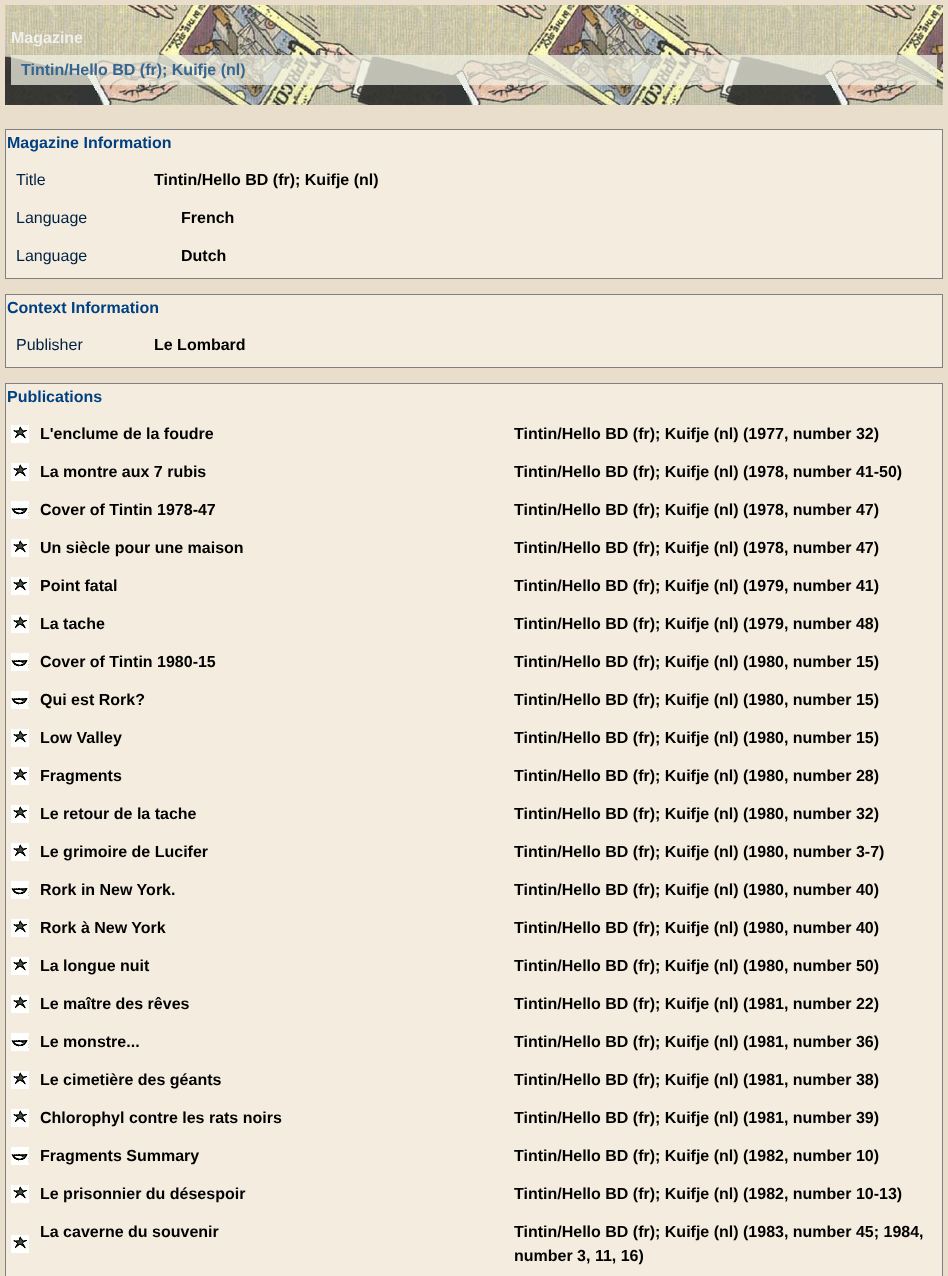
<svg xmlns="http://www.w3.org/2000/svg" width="948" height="1276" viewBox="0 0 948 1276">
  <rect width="100%" height="100%" fill="rgb(233,222,204)"/>
  <image x="5" y="5" width="938" height="100" href="pic1.png"/>
  <text x="11" y="43" font-family="Liberation Sans" font-size="16" font-weight="bold" fill="rgb(240,240,240)">Magazine</text>
  <rect x="11" y="55" width="926" height="30" fill="rgba(238,238,224,0.75)"/>
  <text x="21" y="75" font-family="Liberation Sans" font-size="16" font-weight="bold" fill="rgb(54,101,145)">Tintin/Hello BD (fr); Kuifje (nl)</text>
  <rect x="5.5" y="129.5" width="937" height="149" fill="rgb(244,237,223)" stroke="rgb(128,128,128)"/>
  <text x="7" y="148" font-family="Liberation Sans" font-size="16" font-weight="bold" fill="rgb(0,64,128)">Magazine Information</text>
  <text x="16" y="185" font-family="Liberation Sans" font-size="16" fill="rgb(0,32,64)">Title</text>
  <text x="154" y="185" font-family="Liberation Sans" font-size="16" font-weight="bold" fill="rgb(0,0,0)">Tintin/Hello BD (fr); Kuifje (nl)</text>
  <text x="16" y="223" font-family="Liberation Sans" font-size="16" fill="rgb(0,32,64)">Language</text>
  <text x="181" y="223" font-family="Liberation Sans" font-size="16" font-weight="bold" fill="rgb(0,0,0)">French</text>
  <text x="16" y="261" font-family="Liberation Sans" font-size="16" fill="rgb(0,32,64)">Language</text>
  <text x="181" y="261" font-family="Liberation Sans" font-size="16" font-weight="bold" fill="rgb(0,0,0)">Dutch</text>
  <rect x="5.5" y="294.5" width="937" height="73" fill="rgb(244,237,223)" stroke="rgb(128,128,128)"/>
  <text x="7" y="313" font-family="Liberation Sans" font-size="16" font-weight="bold" fill="rgb(0,64,128)">Context Information</text>
  <text x="16" y="350" font-family="Liberation Sans" font-size="16" fill="rgb(0,32,64)">Publisher</text>
  <text x="154" y="350" font-family="Liberation Sans" font-size="16" font-weight="bold" fill="rgb(0,0,0)">Le Lombard</text>
  <rect x="5.5" y="383.5" width="937" height="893" fill="rgb(244,237,223)" stroke="rgb(128,128,128)"/>
  <text x="7" y="402" font-family="Liberation Sans" font-size="16" font-weight="bold" fill="rgb(0,64,128)">Publications</text>
  <image x="11" y="425" width="18" height="18" href="pic2.png"/>
  <g font-family="Liberation Sans" font-size="16" font-weight="bold" fill="rgb(0,0,0)">
    <text x="40" y="439">L'enclume de la foudre</text>
    <text x="514" y="439">Tintin/Hello BD (fr); Kuifje (nl) (1977, number 32)</text>
  </g>
  <image x="11" y="463" width="18" height="18" href="pic2.png"/>
  <g font-family="Liberation Sans" font-size="16" font-weight="bold" fill="rgb(0,0,0)">
    <text x="40" y="477">La montre aux 7 rubis</text>
    <text x="514" y="477">Tintin/Hello BD (fr); Kuifje (nl) (1978, number 41-50)</text>
  </g>
  <image x="11" y="501" width="18" height="18" href="pic3.png"/>
  <g font-family="Liberation Sans" font-size="16" font-weight="bold" fill="rgb(0,0,0)">
    <text x="40" y="515">Cover of Tintin 1978-47</text>
    <text x="514" y="515">Tintin/Hello BD (fr); Kuifje (nl) (1978, number 47)</text>
  </g>
  <image x="11" y="539" width="18" height="18" href="pic2.png"/>
  <g font-family="Liberation Sans" font-size="16" font-weight="bold" fill="rgb(0,0,0)">
    <text x="40" y="553">Un siècle pour une maison</text>
    <text x="514" y="553">Tintin/Hello BD (fr); Kuifje (nl) (1978, number 47)</text>
  </g>
  <image x="11" y="577" width="18" height="18" href="pic2.png"/>
  <g font-family="Liberation Sans" font-size="16" font-weight="bold" fill="rgb(0,0,0)">
    <text x="40" y="591">Point fatal</text>
    <text x="514" y="591">Tintin/Hello BD (fr); Kuifje (nl) (1979, number 41)</text>
  </g>
  <image x="11" y="615" width="18" height="18" href="pic2.png"/>
  <g font-family="Liberation Sans" font-size="16" font-weight="bold" fill="rgb(0,0,0)">
    <text x="40" y="629">La tache</text>
    <text x="514" y="629">Tintin/Hello BD (fr); Kuifje (nl) (1979, number 48)</text>
  </g>
  <image x="11" y="653" width="18" height="18" href="pic3.png"/>
  <g font-family="Liberation Sans" font-size="16" font-weight="bold" fill="rgb(0,0,0)">
    <text x="40" y="667">Cover of Tintin 1980-15</text>
    <text x="514" y="667">Tintin/Hello BD (fr); Kuifje (nl) (1980, number 15)</text>
  </g>
  <image x="11" y="691" width="18" height="18" href="pic3.png"/>
  <g font-family="Liberation Sans" font-size="16" font-weight="bold" fill="rgb(0,0,0)">
    <text x="40" y="705">Qui est Rork?</text>
    <text x="514" y="705">Tintin/Hello BD (fr); Kuifje (nl) (1980, number 15)</text>
  </g>
  <image x="11" y="729" width="18" height="18" href="pic2.png"/>
  <g font-family="Liberation Sans" font-size="16" font-weight="bold" fill="rgb(0,0,0)">
    <text x="40" y="743">Low Valley</text>
    <text x="514" y="743">Tintin/Hello BD (fr); Kuifje (nl) (1980, number 15)</text>
  </g>
  <image x="11" y="767" width="18" height="18" href="pic2.png"/>
  <g font-family="Liberation Sans" font-size="16" font-weight="bold" fill="rgb(0,0,0)">
    <text x="40" y="781">Fragments</text>
    <text x="514" y="781">Tintin/Hello BD (fr); Kuifje (nl) (1980, number 28)</text>
  </g>
  <image x="11" y="805" width="18" height="18" href="pic2.png"/>
  <g font-family="Liberation Sans" font-size="16" font-weight="bold" fill="rgb(0,0,0)">
    <text x="40" y="819">Le retour de la tache</text>
    <text x="514" y="819">Tintin/Hello BD (fr); Kuifje (nl) (1980, number 32)</text>
  </g>
  <image x="11" y="843" width="18" height="18" href="pic2.png"/>
  <g font-family="Liberation Sans" font-size="16" font-weight="bold" fill="rgb(0,0,0)">
    <text x="40" y="857">Le grimoire de Lucifer</text>
    <text x="514" y="857">Tintin/Hello BD (fr); Kuifje (nl) (1980, number 3-7)</text>
  </g>
  <image x="11" y="881" width="18" height="18" href="pic3.png"/>
  <g font-family="Liberation Sans" font-size="16" font-weight="bold" fill="rgb(0,0,0)">
    <text x="40" y="895">Rork in New York.</text>
    <text x="514" y="895">Tintin/Hello BD (fr); Kuifje (nl) (1980, number 40)</text>
  </g>
  <image x="11" y="919" width="18" height="18" href="pic2.png"/>
  <g font-family="Liberation Sans" font-size="16" font-weight="bold" fill="rgb(0,0,0)">
    <text x="40" y="933">Rork à New York</text>
    <text x="514" y="933">Tintin/Hello BD (fr); Kuifje (nl) (1980, number 40)</text>
  </g>
  <image x="11" y="957" width="18" height="18" href="pic2.png"/>
  <g font-family="Liberation Sans" font-size="16" font-weight="bold" fill="rgb(0,0,0)">
    <text x="40" y="971">La longue nuit</text>
    <text x="514" y="971">Tintin/Hello BD (fr); Kuifje (nl) (1980, number 50)</text>
  </g>
  <image x="11" y="995" width="18" height="18" href="pic2.png"/>
  <g font-family="Liberation Sans" font-size="16" font-weight="bold" fill="rgb(0,0,0)">
    <text x="40" y="1009">Le maître des rêves</text>
    <text x="514" y="1009">Tintin/Hello BD (fr); Kuifje (nl) (1981, number 22)</text>
  </g>
  <image x="11" y="1033" width="18" height="18" href="pic3.png"/>
  <g font-family="Liberation Sans" font-size="16" font-weight="bold" fill="rgb(0,0,0)">
    <text x="40" y="1047">Le monstre...</text>
    <text x="514" y="1047">Tintin/Hello BD (fr); Kuifje (nl) (1981, number 36)</text>
  </g>
  <image x="11" y="1071" width="18" height="18" href="pic2.png"/>
  <g font-family="Liberation Sans" font-size="16" font-weight="bold" fill="rgb(0,0,0)">
    <text x="40" y="1085">Le cimetière des géants</text>
    <text x="514" y="1085">Tintin/Hello BD (fr); Kuifje (nl) (1981, number 38)</text>
  </g>
  <image x="11" y="1109" width="18" height="18" href="pic2.png"/>
  <g font-family="Liberation Sans" font-size="16" font-weight="bold" fill="rgb(0,0,0)">
    <text x="40" y="1123">Chlorophyl contre les rats noirs</text>
    <text x="514" y="1123">Tintin/Hello BD (fr); Kuifje (nl) (1981, number 39)</text>
  </g>
  <image x="11" y="1147" width="18" height="18" href="pic3.png"/>
  <g font-family="Liberation Sans" font-size="16" font-weight="bold" fill="rgb(0,0,0)">
    <text x="40" y="1161">Fragments Summary</text>
    <text x="514" y="1161">Tintin/Hello BD (fr); Kuifje (nl) (1982, number 10)</text>
  </g>
  <image x="11" y="1185" width="18" height="18" href="pic2.png"/>
  <g font-family="Liberation Sans" font-size="16" font-weight="bold" fill="rgb(0,0,0)">
    <text x="40" y="1199">Le prisonnier du désespoir</text>
    <text x="514" y="1199">Tintin/Hello BD (fr); Kuifje (nl) (1982, number 10-13)</text>
  </g>
  <image x="11" y="1235" width="18" height="18" href="pic2.png"/>
  <g font-family="Liberation Sans" font-size="16" font-weight="bold" fill="rgb(0,0,0)">
    <text x="40" y="1237">La caverne du souvenir</text>
    <text>
      <tspan x="514" y="1237">Tintin/Hello BD (fr); Kuifje (nl) (1983, number 45; 1984,</tspan>
      <tspan x="514" y="1261">number 3, 11, 16)</tspan>
    </text>
  </g>
</svg>
